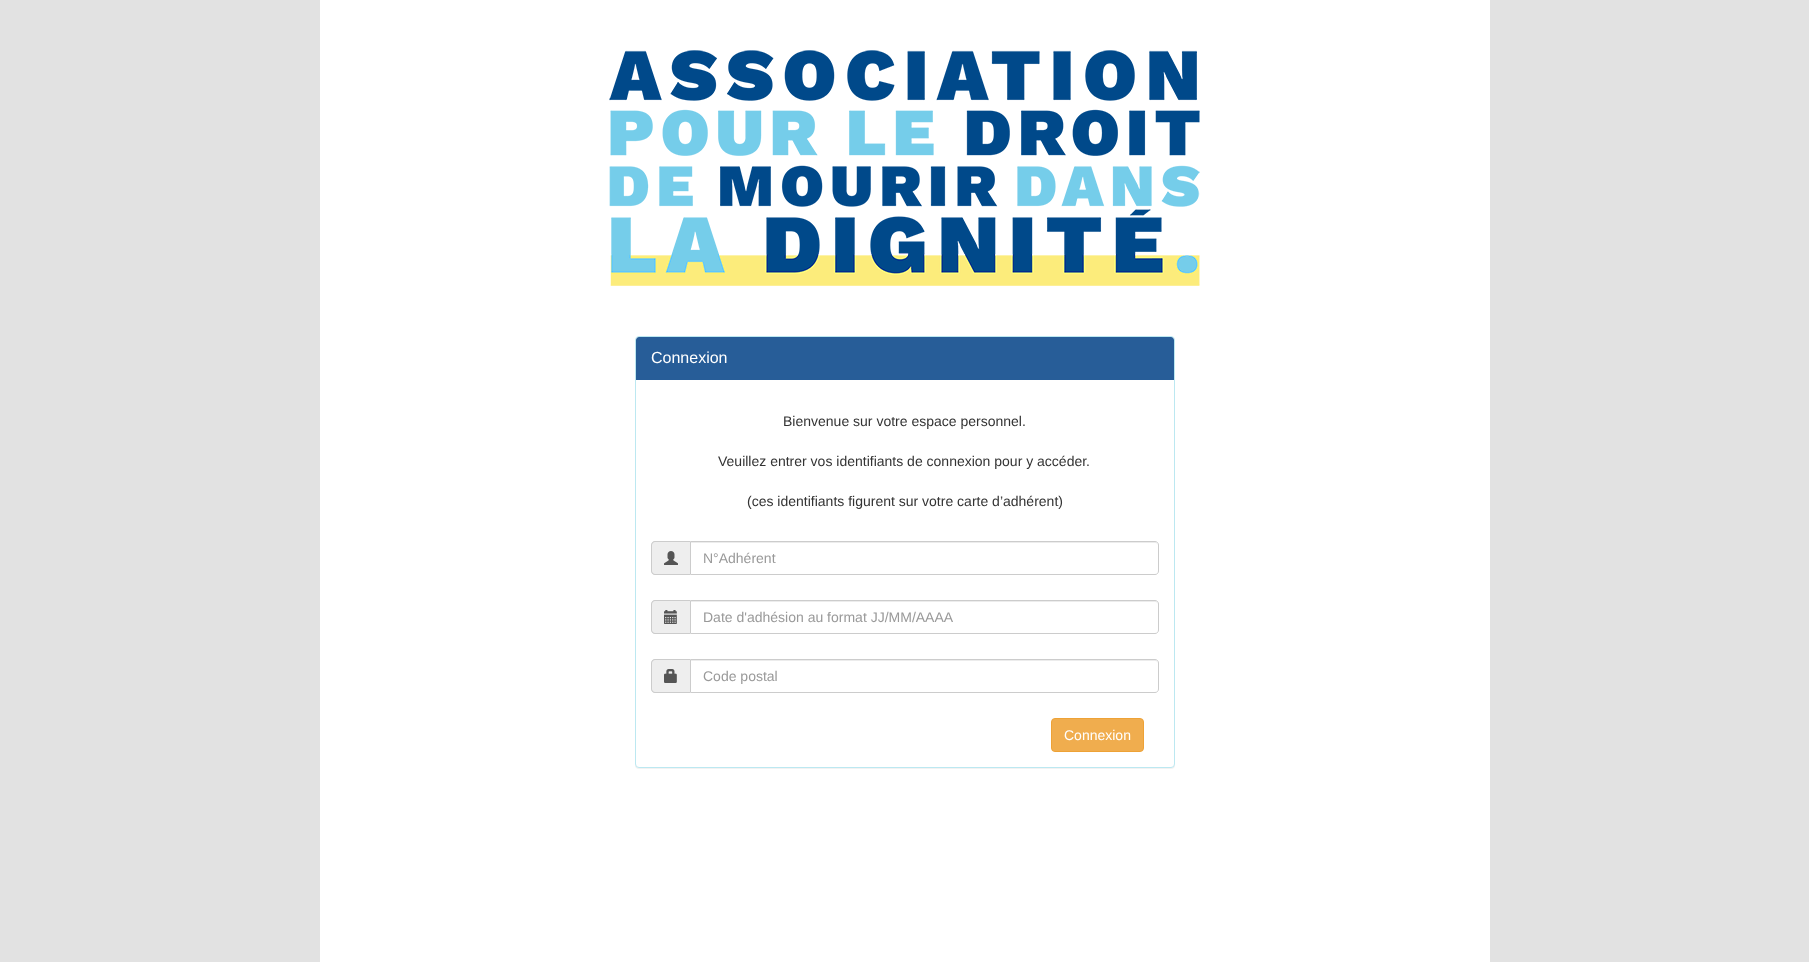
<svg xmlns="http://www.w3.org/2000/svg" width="1809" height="962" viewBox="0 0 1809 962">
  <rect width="100%" height="100%" fill="rgb(226,226,226)"/>
  <rect x="320" y="0" width="1170" height="962" fill="rgb(255,255,255)"/>
  <image x="609" y="50" width="591" height="236" href="pic1.png"/>
  <rect x="635" y="337" width="540" height="432" rx="4" fill="rgba(0,0,0,0.05)" filter="blur(0.5px)"/>
  <rect x="635.5" y="336.5" width="539" height="431" rx="3.5" fill="rgb(255,255,255)" stroke="rgb(188,232,241)"/>
  <path d="M639 337H1171C1172.5 337 1174 338.5 1174 340V381H636V340C636 338.5 637.5 337 639 337Z" fill="rgb(39,93,152)"/>
  <rect x="636" y="380" width="538" height="1" fill="rgb(255,255,255)"/>
  <text x="651" y="363" font-family="Liberation Sans" font-size="16" fill="rgb(255,255,255)">Connexion</text>
  <g font-family="Liberation Sans" font-size="14" fill="rgb(51,51,51)">
    <text x="783" y="426">Bienvenue sur votre espace personnel.</text>
    <text x="718" y="466">Veuillez entrer vos identifiants de connexion pour y accéder.</text>
    <text x="747" y="506">(ces identifiants figurent sur votre carte d’adhérent)</text>
  </g>
  <path d="M655 541H690V575H655C653 575 651 573 651 571V545C651 543 653 541 655 541Z" fill="rgb(238,238,238)"/>
  <path d="M655 541H690V575H655C653 575 651 573 651 571V545C651 543 653 541 655 541ZM655 542H690V574H655C653.5 574 652 572.5 652 571V545C652 543.5 653.5 542 655 542Z" fill="rgb(204,204,204)" fill-rule="evenodd"/>
  <image x="664" y="551" width="14" height="14" href="pic2.png"/>
  <path d="M691 543H1155C1157 543 1158 544 1158 546C1158 544 1157 542 1155 542H691Z" fill="rgb(236,236,236)"/>
  <path d="M690.5 541.5H1155C1157 541.5 1158.5 543 1158.5 545V571C1158.5 573 1157 574.5 1155 574.5H690.5Z" fill="none" stroke="rgb(204,204,204)"/>
  <text x="703" y="563" font-family="Liberation Sans" font-size="14" fill="rgb(153,153,153)">N°Adhérent</text>
  <path d="M655 600H690V634H655C653 634 651 632 651 630V604C651 602 653 600 655 600Z" fill="rgb(238,238,238)"/>
  <path d="M655 600H690V634H655C653 634 651 632 651 630V604C651 602 653 600 655 600ZM655 601H690V633H655C653.5 633 652 631.5 652 630V604C652 602.5 653.5 601 655 601Z" fill="rgb(204,204,204)" fill-rule="evenodd"/>
  <image x="664" y="610" width="13" height="14" href="pic3.png"/>
  <path d="M691 602H1155C1157 602 1158 603 1158 605C1158 603 1157 601 1155 601H691Z" fill="rgb(236,236,236)"/>
  <path d="M690.5 600.5H1155C1157 600.5 1158.5 602 1158.5 604V630C1158.5 632 1157 633.5 1155 633.5H690.5Z" fill="none" stroke="rgb(204,204,204)"/>
  <text x="703" y="622" font-family="Liberation Sans" font-size="14" fill="rgb(153,153,153)">Date d'adhésion au format JJ/MM/AAAA</text>
  <path d="M655 659H690V693H655C653 693 651 691 651 689V663C651 661 653 659 655 659Z" fill="rgb(238,238,238)"/>
  <path d="M655 659H690V693H655C653 693 651 691 651 689V663C651 661 653 659 655 659ZM655 660H690V692H655C653.5 692 652 690.5 652 689V663C652 661.5 653.5 660 655 660Z" fill="rgb(204,204,204)" fill-rule="evenodd"/>
  <image x="664" y="669" width="13" height="14" href="pic4.png"/>
  <path d="M691 661H1155C1157 661 1158 662 1158 664C1158 662 1157 660 1155 660H691Z" fill="rgb(236,236,236)"/>
  <path d="M690.5 659.5H1155C1157 659.5 1158.5 661 1158.5 663V689C1158.5 691 1157 692.5 1155 692.5H690.5Z" fill="none" stroke="rgb(204,204,204)"/>
  <text x="703" y="681" font-family="Liberation Sans" font-size="14" fill="rgb(153,153,153)">Code postal</text>
  <rect x="1051.5" y="718.5" width="92" height="33" rx="3.5" fill="rgb(240,173,78)" stroke="rgb(238,162,54)"/>
  <text x="1064" y="740" font-family="Liberation Sans" font-size="14" fill="rgb(255,255,255)">Connexion</text>
</svg>
